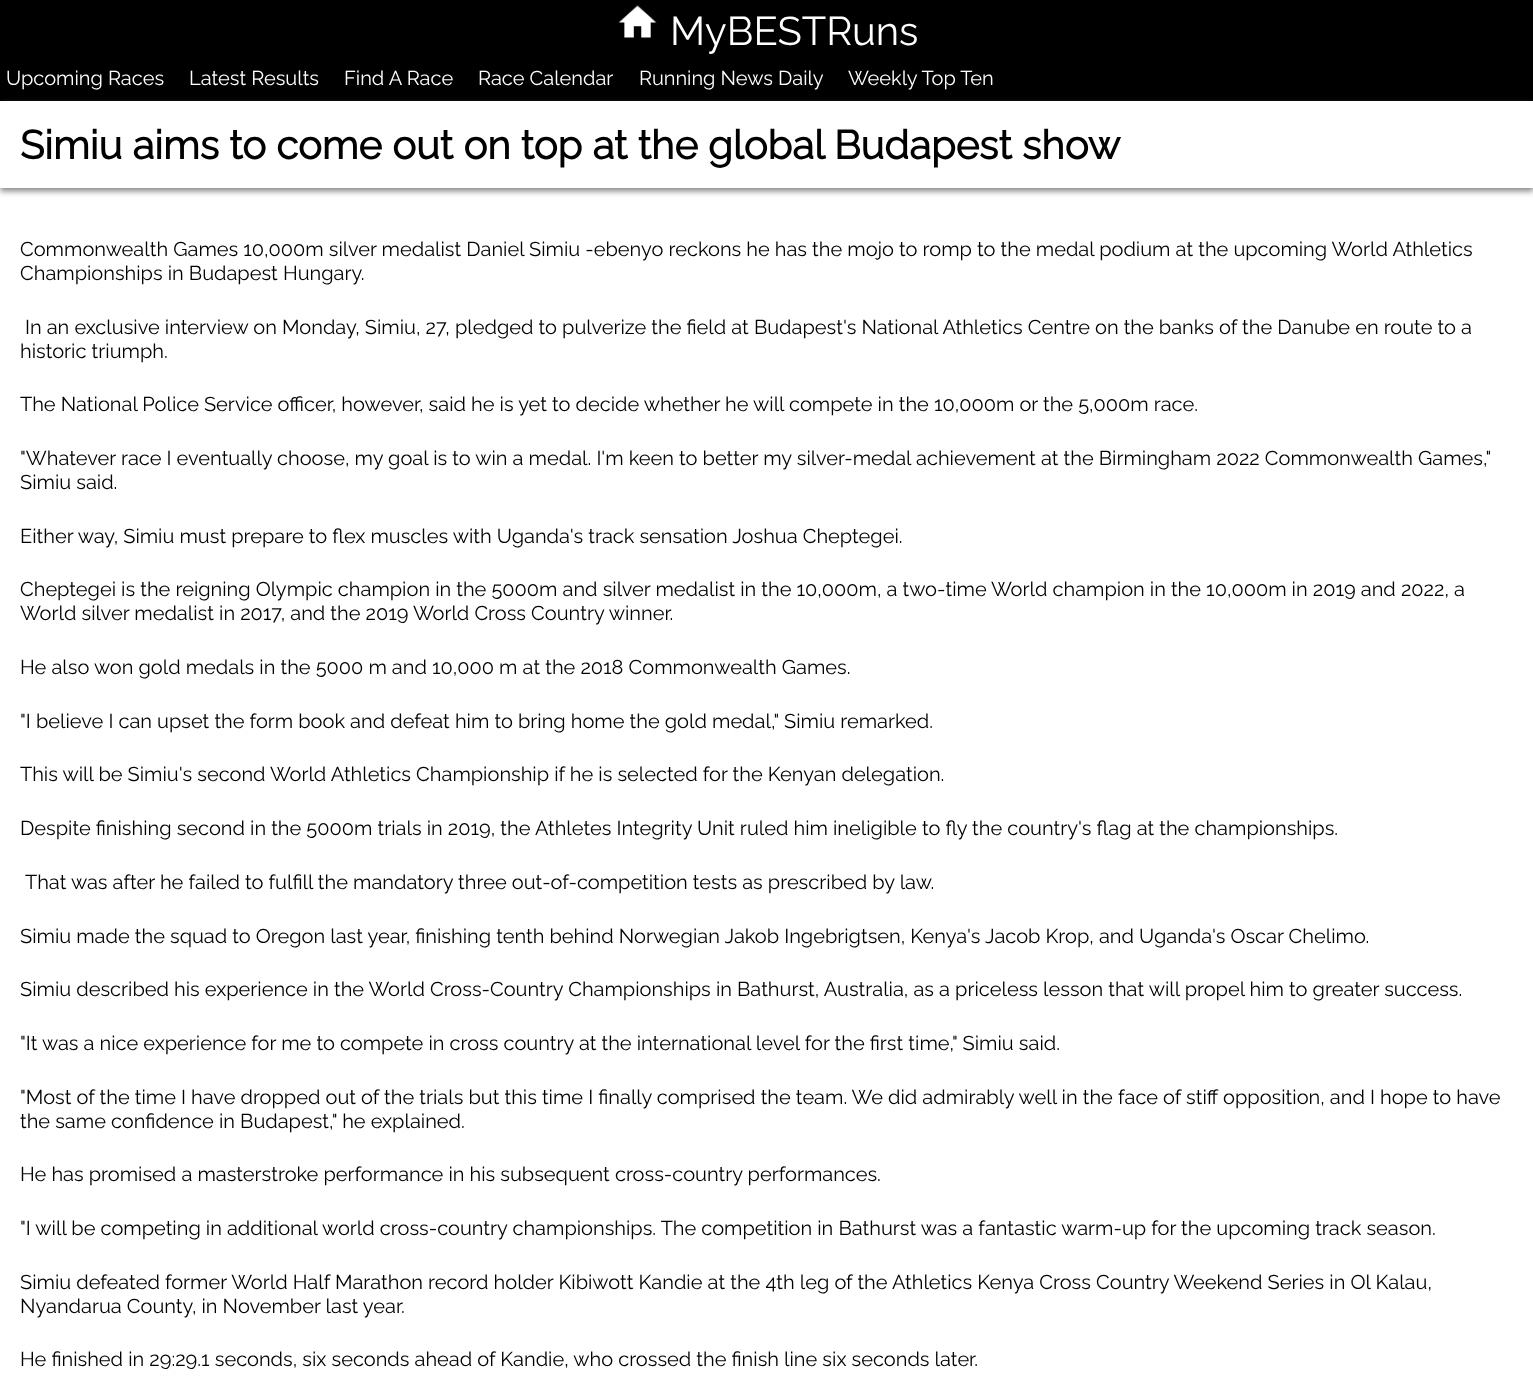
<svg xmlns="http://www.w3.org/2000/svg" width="1533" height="1393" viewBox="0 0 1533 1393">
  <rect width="100%" height="100%" fill="rgb(255,255,255)"/>
  <rect x="0" y="0" width="1533" height="101" fill="rgb(0,0,0)"/>
  <image x="618" y="5" width="39" height="33" href="pic1.png"/>
  <text x="670" y="45" font-family="Raleway" font-size="40" font-weight="100" fill="rgb(255,255,255)">MyBESTRuns</text>
  <g font-family="Raleway" font-size="20" font-weight="100" fill="rgb(255,255,255)">
    <text x="6" y="85">Upcoming Races</text>
    <text x="189" y="85">Latest Results</text>
    <text x="344" y="85">Find A Race</text>
    <text x="478" y="85">Race Calendar</text>
    <text x="639" y="85">Running News Daily</text>
    <text x="848" y="85">Weekly Top Ten</text>
  </g>
  <rect x="0" y="105" width="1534" height="86" fill="rgb(128,128,128)" filter="blur(3px)"/>
  <rect x="0" y="101" width="1533" height="87" fill="rgb(255,255,255)"/>
  <text x="20" y="159" font-family="Raleway" font-size="40" font-weight="bold" fill="rgb(0,0,0)">Simiu aims to come out on top at the global Budapest show</text>
  <g font-family="Raleway" font-size="20" font-weight="100" fill="rgb(0,0,0)">
    <text>
      <tspan x="20" y="256">Commonwealth Games 10,000m silver medalist Daniel Simiu -ebenyo reckons he has the mojo to romp to the medal podium at the upcoming World Athletics</tspan>
      <tspan x="20" y="280">Championships in Budapest Hungary.</tspan>
    </text>
    <text x="25" y="334">In an exclusive interview on Monday, Simiu, 27, pledged to pulverize the field at Budapest's National Athletics Centre on the banks of the Danube en route to a</text>
    <text x="20" y="358">historic triumph.</text>
    <text x="20" y="411">The National Police Service officer, however, said he is yet to decide whether he will compete in the 10,000m or the 5,000m race.</text>
    <text>
      <tspan x="20" y="465">"Whatever race I eventually choose, my goal is to win a medal. I'm keen to better my silver-medal achievement at the Birmingham 2022 Commonwealth Games,"</tspan>
      <tspan x="20" y="489">Simiu said.</tspan>
    </text>
    <text x="20" y="543">Either way, Simiu must prepare to flex muscles with Uganda's track sensation Joshua Cheptegei.</text>
    <text>
      <tspan x="20" y="596">Cheptegei is the reigning Olympic champion in the 5000m and silver medalist in the 10,000m, a two-time World champion in the 10,000m in 2019 and 2022, a</tspan>
      <tspan x="20" y="620">World silver medalist in 2017, and the 2019 World Cross Country winner.</tspan>
    </text>
    <text x="20" y="674">He also won gold medals in the 5000 m and 10,000 m at the 2018 Commonwealth Games.</text>
    <text x="20" y="728">"I believe I can upset the form book and defeat him to bring home the gold medal," Simiu remarked.</text>
    <text x="20" y="781">This will be Simiu's second World Athletics Championship if he is selected for the Kenyan delegation.</text>
    <text x="20" y="835">Despite finishing second in the 5000m trials in 2019, the Athletes Integrity Unit ruled him ineligible to fly the country's flag at the championships.</text>
    <text x="25" y="889">That was after he failed to fulfill the mandatory three out-of-competition tests as prescribed by law.</text>
    <text x="20" y="943">Simiu made the squad to Oregon last year, finishing tenth behind Norwegian Jakob Ingebrigtsen, Kenya's Jacob Krop, and Uganda's Oscar Chelimo.</text>
    <text x="20" y="996">Simiu described his experience in the World Cross-Country Championships in Bathurst, Australia, as a priceless lesson that will propel him to greater success.</text>
    <text x="20" y="1050">"It was a nice experience for me to compete in cross country at the international level for the first time," Simiu said.</text>
    <text>
      <tspan x="20" y="1104">"Most of the time I have dropped out of the trials but this time I finally comprised the team. We did admirably well in the face of stiff opposition, and I hope to have</tspan>
      <tspan x="20" y="1128">the same confidence in Budapest," he explained.</tspan>
    </text>
    <text x="20" y="1181">He has promised a masterstroke performance in his subsequent cross-country performances.</text>
    <text x="20" y="1235">"I will be competing in additional world cross-country championships. The competition in Bathurst was a fantastic warm-up for the upcoming track season.</text>
    <text>
      <tspan x="20" y="1289">Simiu defeated former World Half Marathon record holder Kibiwott Kandie at the 4th leg of the Athletics Kenya Cross Country Weekend Series in Ol Kalau,</tspan>
      <tspan x="20" y="1313">Nyandarua County, in November last year.</tspan>
    </text>
    <text x="20" y="1366">He finished in 29:29.1 seconds, six seconds ahead of Kandie, who crossed the finish line six seconds later.</text>
  </g>
</svg>
